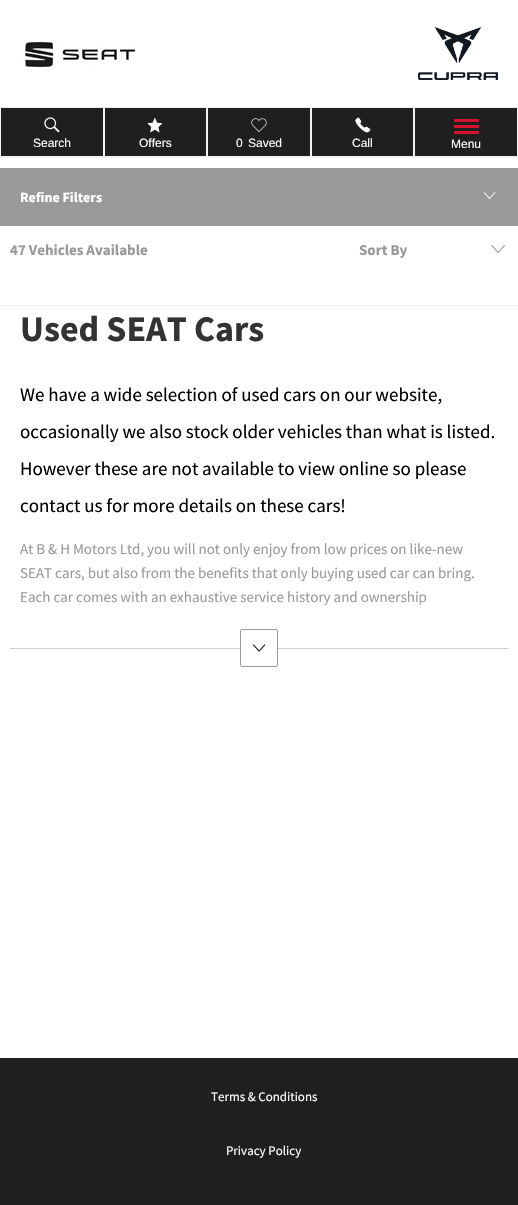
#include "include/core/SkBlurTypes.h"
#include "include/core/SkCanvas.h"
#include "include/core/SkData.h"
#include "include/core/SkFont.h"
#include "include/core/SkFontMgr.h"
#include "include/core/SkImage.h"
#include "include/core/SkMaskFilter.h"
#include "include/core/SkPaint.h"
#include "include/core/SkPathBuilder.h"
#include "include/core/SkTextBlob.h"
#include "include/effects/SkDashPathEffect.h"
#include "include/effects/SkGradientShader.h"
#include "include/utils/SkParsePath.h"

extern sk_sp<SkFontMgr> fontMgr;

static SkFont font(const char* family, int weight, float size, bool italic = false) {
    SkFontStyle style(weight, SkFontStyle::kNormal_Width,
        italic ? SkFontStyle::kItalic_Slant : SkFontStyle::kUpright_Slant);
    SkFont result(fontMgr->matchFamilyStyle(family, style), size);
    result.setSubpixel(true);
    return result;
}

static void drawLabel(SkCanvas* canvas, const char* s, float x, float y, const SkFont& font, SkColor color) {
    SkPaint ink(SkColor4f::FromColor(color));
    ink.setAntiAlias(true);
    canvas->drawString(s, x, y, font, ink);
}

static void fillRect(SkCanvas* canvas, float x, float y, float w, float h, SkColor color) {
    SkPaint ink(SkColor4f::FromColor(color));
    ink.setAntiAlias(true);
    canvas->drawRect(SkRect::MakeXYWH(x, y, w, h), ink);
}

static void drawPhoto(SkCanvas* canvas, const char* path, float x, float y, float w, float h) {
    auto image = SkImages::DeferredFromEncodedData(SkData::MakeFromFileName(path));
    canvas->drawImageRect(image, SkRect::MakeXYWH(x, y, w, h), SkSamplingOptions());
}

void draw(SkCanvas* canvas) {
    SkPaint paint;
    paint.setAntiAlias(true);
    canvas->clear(0xFFFFFFFF);
    drawPhoto(canvas, "assets/img1.png", 22, 41, 115, 31);
    drawPhoto(canvas, "assets/img2.png", 418, 27, 80, 53);
    fillRect(canvas, 1, 108, 516, 48, 0xFF1F1F1F);
    paint.setStroke(true);
    paint.setStrokeWidth(1);
    paint.setColor(0xFFF2F2F2);
    canvas->drawRect(SkRect::MakeXYWH(0.5f, 107.5f, 103, 49), paint);
    drawPhoto(canvas, "assets/img3.png", 44, 117, 16, 16);
    SkFont font1 = font("Liberation Sans", 400, 12);
    drawLabel(canvas, "Search", 33, 147, font1, 0xFFFFFFFF);
    canvas->drawRect(SkRect::MakeXYWH(104.5f, 107.5f, 102, 49), paint);
    drawPhoto(canvas, "assets/img4.png", 147, 117, 16, 16);
    drawLabel(canvas, "Offers", 139, 147, font1, 0xFFFFFFFF);
    canvas->drawRect(SkRect::MakeXYWH(207.5f, 107.5f, 103, 49), paint);
    drawPhoto(canvas, "assets/img5.png", 251, 118, 16, 14);
    drawLabel(canvas, "0", 236, 147, font1, 0xFFFFFFFF);
    drawLabel(canvas, "Saved", 248, 147, font1, 0xFFFFFFFF);
    canvas->drawRect(SkRect::MakeXYWH(311.5f, 107.5f, 102, 49), paint);
    drawPhoto(canvas, "assets/img6.png", 355, 117, 16, 16);
    drawLabel(canvas, "Call", 352, 147, font1, 0xFFFFFFFF);
    canvas->drawRect(SkRect::MakeXYWH(414.5f, 107.5f, 103, 49), paint);
    fillRect(canvas, 454, 131, 25, 3, 0xFFD7122B);
    fillRect(canvas, 454, 119, 25, 3, 0xFFD7122B);
    fillRect(canvas, 454, 125, 25, 3, 0xFFD7122B);
    drawLabel(canvas, "Menu", 451, 148, font1, 0xFFFFFFFF);
    fillRect(canvas, 0, 157, 518, 1, 0xFFF2F2F2);
    fillRect(canvas, 0, 168, 518, 58, 0xFF999999);
    SkFont font2 = font("Source Sans Pro", 700, 14);
    drawLabel(canvas, "Refine Filters", 20, 202, font2, 0xFFFFFFFF);
    drawPhoto(canvas, "assets/img7.png", 483, 192, 13, 7);
    SkFont font3 = font("Source Sans Pro", 700, 15);
    drawLabel(canvas, "47 Vehicles Available", 10, 255, font3, 0xFF999999);
    drawLabel(canvas, "Sort By", 359, 255, font3, 0xFF999999);
    drawPhoto(canvas, "assets/img8.png", 491, 245, 14, 8);
    fillRect(canvas, 0, 305, 518, 1, 0xFFF2F2F2);
    SkFont font4 = font("Source Sans Pro", 700, 36);
    drawLabel(canvas, "Used SEAT Cars", 20, 341, font4, 0xFF333333);
    SkFont font5 = font("Source Sans Pro", 400, 19);
    drawLabel(canvas, "We have a wide selection of used cars on our website,", 20, 401, font5, 0xFF000000);
    drawLabel(canvas, "occasionally we also stock older vehicles than what is listed.", 20, 438, font5, 0xFF000000);
    drawLabel(canvas, "However these are not available to view online so please", 20, 475, font5, 0xFF000000);
    drawLabel(canvas, "contact us for more details on these cars!", 20, 512, font5, 0xFF000000);
    SkFont font6 = font("Source Sans Pro", 400, 15);
    drawLabel(canvas, "At B & H Motors Ltd, you will not only enjoy from low prices on like-new", 20, 554, font6, 0xFF999999);
    drawLabel(canvas, "SEAT cars, but also from the benefits that only buying used car can bring.", 20, 578, font6, 0xFF999999);
    drawLabel(canvas, "Each car comes with an exhaustive service history and ownership", 20, 602, font6, 0xFF999999);
    paint.setStroke(false);
    {
        const SkColor colors[] = {0x00FFFFFF, 0xFFFFFFFF};
        const float stops[] = {0, 0.44f};
        const SkPoint ends[] = {{259, 599}, {259, 667}};
        paint.setShader(SkGradientShader::MakeLinear(ends, colors, stops, 2, SkTileMode::kClamp));
        paint.setAlpha(255);
    }
    canvas->drawRect(SkRect::MakeXYWH(21, 600, 405, 5), paint);
    fillRect(canvas, 10, 648, 498, 1, 0xFFCCCCCC);
    paint.setShader(nullptr);
    paint.setColor(0xFFFFFFFF);
    canvas->drawRoundRect(SkRect::MakeXYWH(240.5f, 629.5f, 37, 37), 1.5f, 1.5f, paint);
    paint.setStroke(true);
    paint.setColor(0xFF999999);
    canvas->drawRoundRect(SkRect::MakeXYWH(240.5f, 629.5f, 37, 37), 1.5f, 1.5f, paint);
    drawPhoto(canvas, "assets/img9.png", 253, 644, 13, 8);
    fillRect(canvas, 0, 1058, 518, 147, 0xFF1F1F1F);
    SkFont font7 = font("Source Sans Pro", 400, 13);
    drawLabel(canvas, "Terms & Conditions", 211, 1101, font7, 0xFFFFFFFF);
    drawLabel(canvas, "Privacy Policy", 226, 1155, font7, 0xFFFFFFFF);
}
